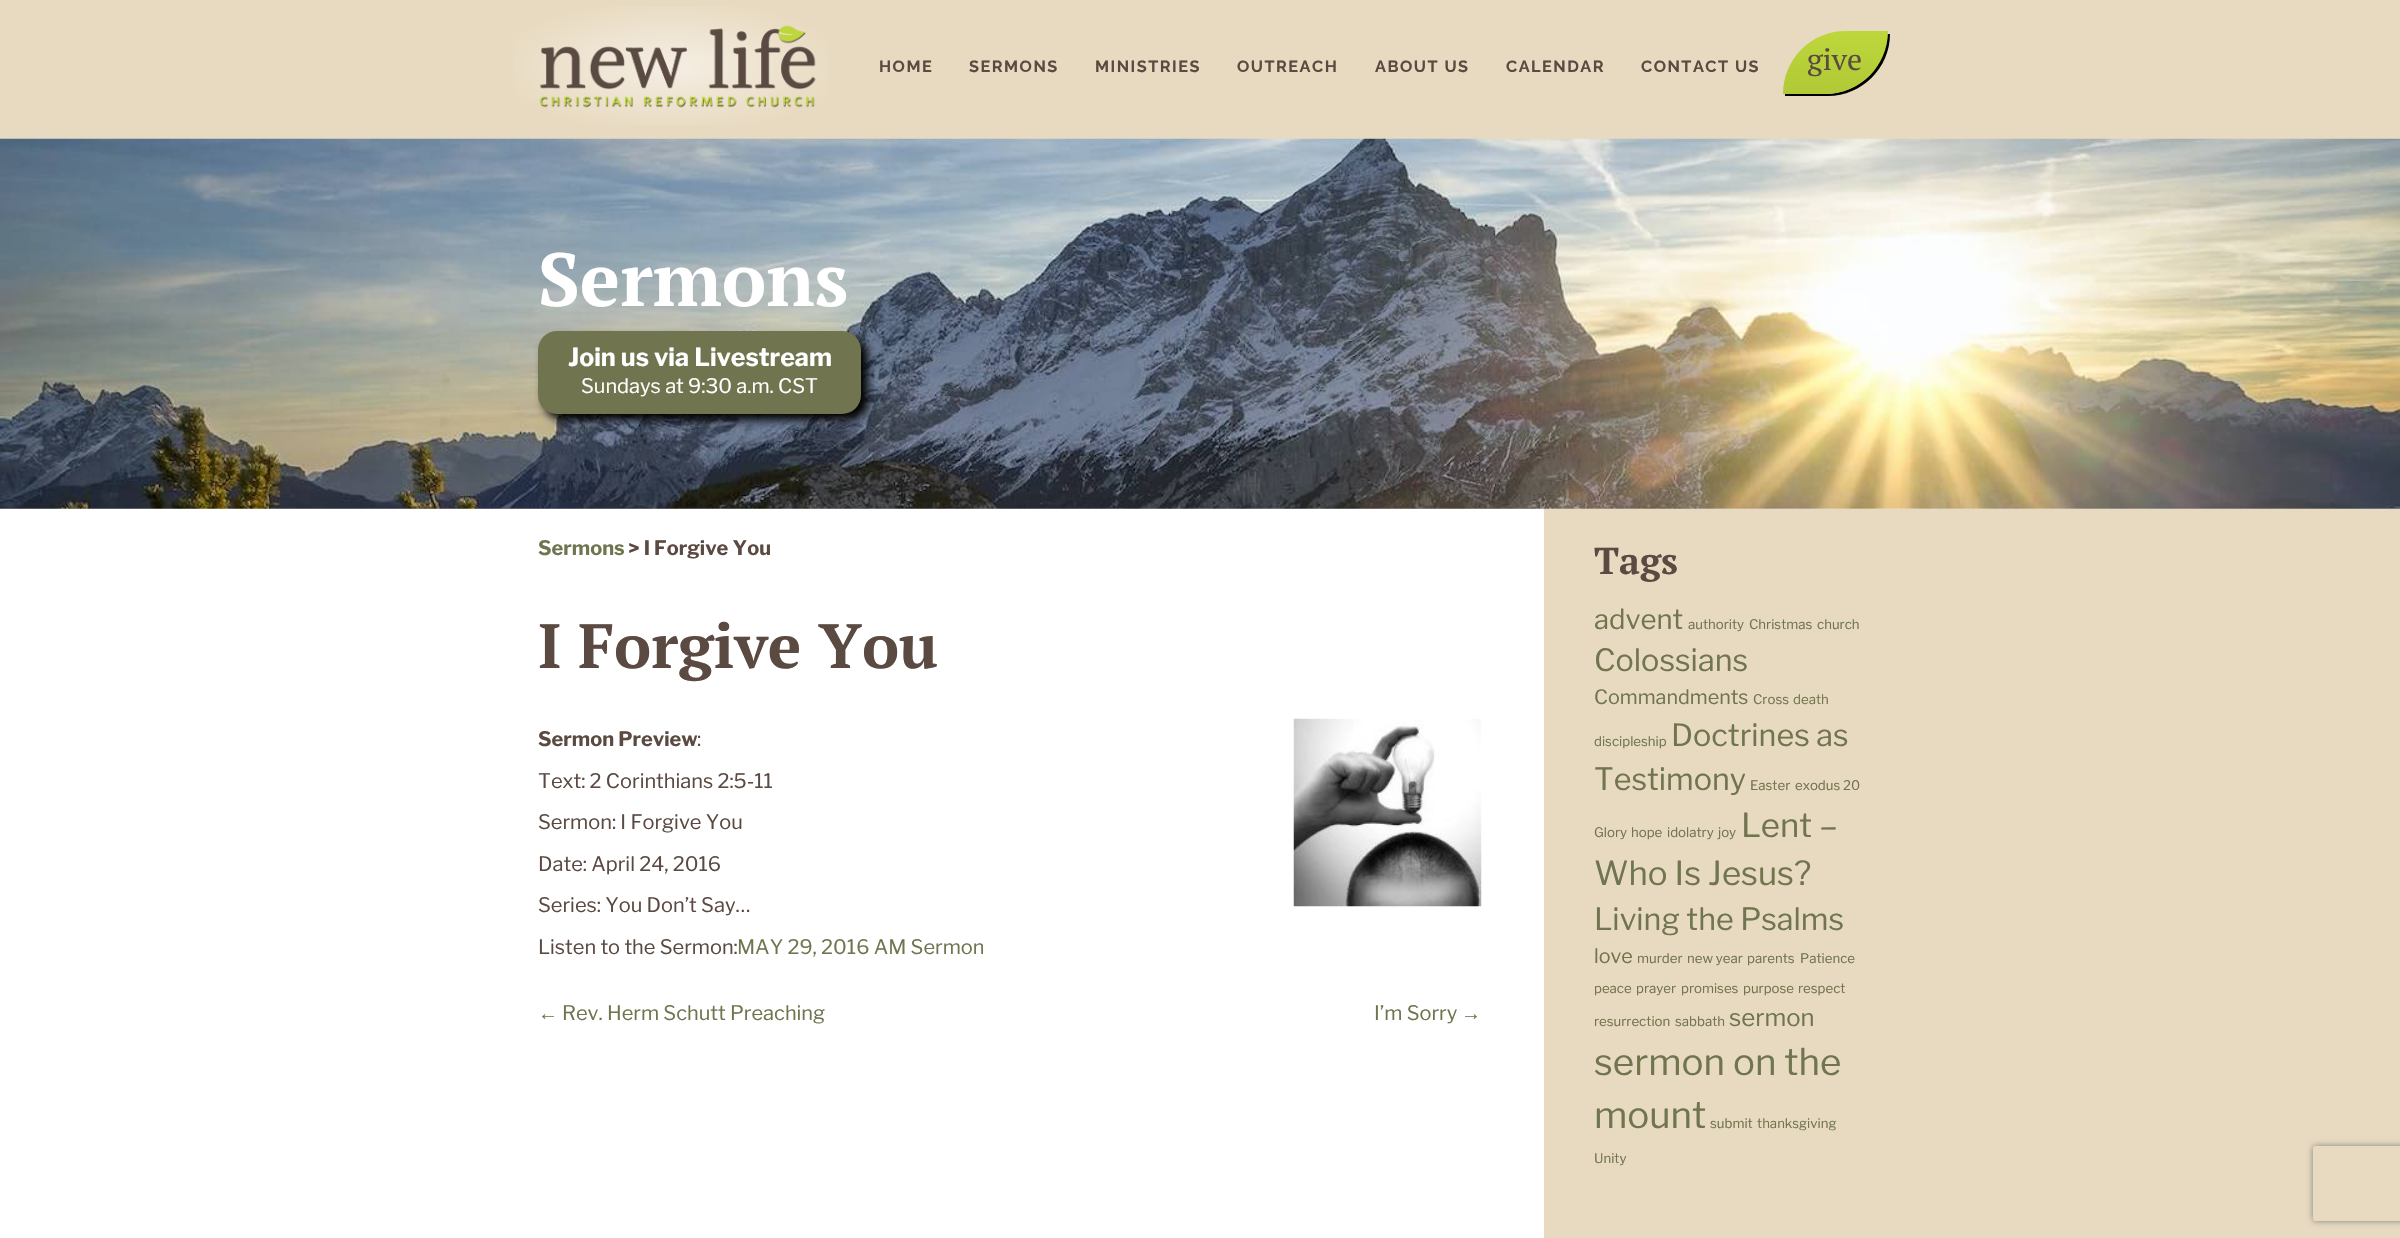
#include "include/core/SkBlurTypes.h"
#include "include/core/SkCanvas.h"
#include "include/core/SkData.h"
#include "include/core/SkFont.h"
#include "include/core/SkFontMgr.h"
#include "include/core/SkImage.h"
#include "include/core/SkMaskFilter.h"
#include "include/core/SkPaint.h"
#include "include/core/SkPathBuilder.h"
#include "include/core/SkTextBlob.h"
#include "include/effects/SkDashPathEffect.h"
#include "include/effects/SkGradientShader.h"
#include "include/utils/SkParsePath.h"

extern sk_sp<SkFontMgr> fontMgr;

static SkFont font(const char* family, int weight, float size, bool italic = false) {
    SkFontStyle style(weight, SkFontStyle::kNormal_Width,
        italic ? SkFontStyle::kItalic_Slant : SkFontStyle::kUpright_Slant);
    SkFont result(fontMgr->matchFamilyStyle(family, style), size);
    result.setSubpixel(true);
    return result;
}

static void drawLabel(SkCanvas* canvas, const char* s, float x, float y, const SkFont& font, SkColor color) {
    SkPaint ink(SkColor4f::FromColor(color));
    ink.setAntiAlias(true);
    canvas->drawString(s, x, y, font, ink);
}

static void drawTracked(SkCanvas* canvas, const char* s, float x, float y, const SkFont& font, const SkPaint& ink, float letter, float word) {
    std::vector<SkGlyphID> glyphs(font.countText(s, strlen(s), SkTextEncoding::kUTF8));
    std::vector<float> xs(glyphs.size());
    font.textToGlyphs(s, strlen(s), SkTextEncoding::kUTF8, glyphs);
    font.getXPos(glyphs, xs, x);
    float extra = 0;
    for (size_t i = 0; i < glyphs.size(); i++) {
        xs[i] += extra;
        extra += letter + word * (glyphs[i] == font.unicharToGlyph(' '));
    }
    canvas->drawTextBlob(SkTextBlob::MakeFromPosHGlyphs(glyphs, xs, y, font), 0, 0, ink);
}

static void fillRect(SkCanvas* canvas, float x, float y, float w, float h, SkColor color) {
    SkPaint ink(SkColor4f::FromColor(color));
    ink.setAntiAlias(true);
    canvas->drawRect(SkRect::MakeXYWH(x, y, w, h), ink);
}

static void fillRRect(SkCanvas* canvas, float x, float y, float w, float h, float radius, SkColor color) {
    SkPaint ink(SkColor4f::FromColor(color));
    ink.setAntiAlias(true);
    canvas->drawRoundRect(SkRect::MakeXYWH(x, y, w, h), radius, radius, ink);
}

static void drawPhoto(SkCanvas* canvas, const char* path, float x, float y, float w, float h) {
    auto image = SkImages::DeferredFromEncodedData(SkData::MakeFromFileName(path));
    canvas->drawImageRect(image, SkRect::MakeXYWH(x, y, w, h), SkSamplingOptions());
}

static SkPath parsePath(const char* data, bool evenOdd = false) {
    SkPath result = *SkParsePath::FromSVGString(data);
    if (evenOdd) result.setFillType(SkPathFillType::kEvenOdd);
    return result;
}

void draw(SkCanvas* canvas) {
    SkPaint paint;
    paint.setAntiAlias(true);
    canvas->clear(0xFFFFFFFF);
    fillRect(canvas, 0, 0, 2400, 139, 0xFFE8DAC0);
    {
        const SkColor colors[] = {0xFFF5EEE3, 0xFFE8DAC0};
        const float stops[] = {0, 0.8f};
        SkMatrix m = SkMatrix::Translate(671, 66).preScale(224, 85);
        paint.setShader(SkGradientShader::MakeRadial({0, 0}, 1, colors, stops, 2, SkTileMode::kClamp, 0, &m));
        paint.setAlpha(255);
    }
    canvas->drawRect(SkRect::MakeXYWH(513, 6, 316, 120), paint);
    drawPhoto(canvas, "assets/img1.png", 539, 25, 277, 83);
    SkFont font1 = font("Raleway", 100, 16.25f);
    paint.setShader(nullptr);
    paint.setColor(0xFF5B4A42);
    drawTracked(canvas, "HOME", 879, 72, font1, paint, 1.5f, 0);
    drawTracked(canvas, "SERMONS", 969, 72, font1, paint, 1.5f, 0);
    drawTracked(canvas, "MINISTRIES", 1095, 72, font1, paint, 1.5f, 0);
    drawTracked(canvas, "OUTREACH", 1237, 72, font1, paint, 1.5f, 0);
    drawTracked(canvas, "ABOUT US", 1375, 72, font1, paint, 1.5f, 0);
    drawTracked(canvas, "CALENDAR", 1506, 72, font1, paint, 1.5f, 0);
    drawTracked(canvas, "CONTACT US", 1641, 72, font1, paint, 1.5f, 0);
    paint.setColor(0xFF000000);
    canvas->drawPath(parsePath("M1785 94V96H1828C1862 96 1890 68 1890 34H1887C1886 67 1859 94 1825 94Z"), paint);
    {
        const SkColor colors[] = {0xFFBDD73B, 0xFFB0C936};
        const float stops[] = {0, 1};
        const SkPoint ends[] = {{1835, 31}, {1835, 94}};
        paint.setShader(SkGradientShader::MakeLinear(ends, colors, stops, 2, SkTileMode::kClamp));
        paint.setAlpha(255);
    }
    canvas->drawPath(parsePath("M1846 31H1888C1888 66 1860 94 1825 94H1783C1783 59 1811 31 1846 31Z"), paint);
    SkFont font2 = font("PT Serif", 400, 30);
    drawLabel(canvas, "give", 1807, 70, font2, 0xFF5B4A42);
    drawPhoto(canvas, "assets/img2.png", 0, 138, 2400, 371);
    SkFont font3 = font("PT Serif", 700, 75);
    drawLabel(canvas, "Sermons", 538, 306, font3, 0xFFFFFFFF);
    paint.setShader(nullptr);
    paint.setColor(0xFF000000);
    paint.setMaskFilter(SkMaskFilter::MakeBlur(kNormal_SkBlurStyle, 5));
    canvas->drawRoundRect(SkRect::MakeXYWH(544, 338, 324, 82), 19, 19, paint);
    paint.setMaskFilter(nullptr);
    fillRRect(canvas, 538, 331, 323, 83, 19, 0xFF70754F);
    SkFont font4 = font("Libre Franklin", 700, 25);
    drawLabel(canvas, "Join us via Livestream", 568, 366, font4, 0xFFFFFFFF);
    SkFont font5 = font("Libre Franklin", 400, 20);
    drawLabel(canvas, "Sundays at 9:30 a.m. CST", 581, 393, font5, 0xFFFFFFFF);
    fillRect(canvas, 1544, 509, 856, 729, 0xFFE8DAC0);
    SkFont font6 = font("Libre Franklin", 700, 20);
    drawLabel(canvas, "Sermons", 538, 555, font6, 0xFF70754F);
    drawLabel(canvas, "> I Forgive You", 628, 555, font6, 0xFF5B4A42);
    SkFont font7 = font("PT Serif", 700, 62.5f);
    drawLabel(canvas, "I Forgive You", 538, 668, font7, 0xFF5B4A42);
    drawLabel(canvas, "Sermon Preview", 538, 746, font6, 0xFF5B4A42);
    drawLabel(canvas, ":", 697, 746, font5, 0xFF5B4A42);
    drawPhoto(canvas, "assets/img3.png", 1293, 718, 189, 189);
    drawLabel(canvas, "Text: 2 Corinthians 2:5-11", 538, 788, font5, 0xFF5B4A42);
    drawLabel(canvas, "Sermon: I Forgive You", 538, 829, font5, 0xFF5B4A42);
    drawLabel(canvas, "Date: April 24, 2016", 538, 871, font5, 0xFF5B4A42);
    drawLabel(canvas, "Series: You Don’t Say…", 538, 912, font5, 0xFF5B4A42);
    drawLabel(canvas, "Listen to the Sermon:", 538, 954, font5, 0xFF5B4A42);
    drawLabel(canvas, "MAY 29, 2016 AM Sermon", 737, 954, font5, 0xFF70754F);
    SkFont font8 = font("Liberation Sans", 400, 20);
    drawLabel(canvas, "←", 538, 1020, font8, 0xFF70754F);
    drawLabel(canvas, "Rev. Herm Schutt Preaching", 562, 1020, font5, 0xFF70754F);
    drawLabel(canvas, "I’m Sorry", 1374, 1020, font5, 0xFF70754F);
    drawLabel(canvas, "→", 1461, 1020, font8, 0xFF70754F);
    SkFont font9 = font("PT Serif", 700, 37.5f);
    drawLabel(canvas, "Tags", 1594, 574, font9, 0xFF5B4A42);
    SkFont font10 = font("Libre Franklin", 400, 27.5f);
    drawLabel(canvas, "advent", 1594, 629, font10, 0xFF70754F);
    SkFont font11 = font("Libre Franklin", 400, 13.25f);
    drawLabel(canvas, "authority", 1688, 629, font11, 0xFF70754F);
    drawLabel(canvas, "Christmas", 1749, 629, font11, 0xFF70754F);
    drawLabel(canvas, "church", 1817, 629, font11, 0xFF70754F);
    SkFont font12 = font("Libre Franklin", 400, 30.5f);
    drawLabel(canvas, "Colossians", 1594, 671, font12, 0xFF70754F);
    SkFont font13 = font("Libre Franklin", 400, 19.75f);
    drawLabel(canvas, "Commandments", 1594, 704, font13, 0xFF70754F);
    drawLabel(canvas, "Cross", 1753, 704, font11, 0xFF70754F);
    drawLabel(canvas, "death", 1793, 704, font11, 0xFF70754F);
    drawLabel(canvas, "discipleship", 1594, 746, font11, 0xFF70754F);
    drawLabel(canvas, "Doctrines as", 1671, 746, font12, 0xFF70754F);
    drawLabel(canvas, "Testimony", 1594, 790, font12, 0xFF70754F);
    drawLabel(canvas, "Easter", 1750, 790, font11, 0xFF70754F);
    drawLabel(canvas, "exodus 20", 1795, 790, font11, 0xFF70754F);
    drawLabel(canvas, "Glory", 1594, 837, font11, 0xFF70754F);
    drawLabel(canvas, "hope", 1631, 837, font11, 0xFF70754F);
    drawLabel(canvas, "idolatry", 1667, 837, font11, 0xFF70754F);
    drawLabel(canvas, "joy", 1718, 837, font11, 0xFF70754F);
    SkFont font14 = font("Libre Franklin", 400, 33);
    drawLabel(canvas, "Lent –", 1741, 837, font14, 0xFF70754F);
    drawLabel(canvas, "Who Is Jesus?", 1594, 885, font14, 0xFF70754F);
    drawLabel(canvas, "Living the Psalms", 1594, 930, font12, 0xFF70754F);
    drawLabel(canvas, "love", 1594, 963, font13, 0xFF70754F);
    drawLabel(canvas, "murder", 1637, 963, font11, 0xFF70754F);
    drawLabel(canvas, "new year", 1687, 963, font11, 0xFF70754F);
    drawLabel(canvas, "parents", 1747, 963, font11, 0xFF70754F);
    drawLabel(canvas, "Patience", 1800, 963, font11, 0xFF70754F);
    drawLabel(canvas, "peace", 1594, 993, font11, 0xFF70754F);
    drawLabel(canvas, "prayer", 1636, 993, font11, 0xFF70754F);
    drawLabel(canvas, "promises", 1681, 993, font11, 0xFF70754F);
    drawLabel(canvas, "purpose", 1743, 993, font11, 0xFF70754F);
    drawLabel(canvas, "respect", 1798, 993, font11, 0xFF70754F);
    drawLabel(canvas, "resurrection", 1594, 1026, font11, 0xFF70754F);
    drawLabel(canvas, "sabbath", 1675, 1026, font11, 0xFF70754F);
    SkFont font15 = font("Libre Franklin", 400, 24);
    drawLabel(canvas, "sermon", 1729, 1026, font15, 0xFF70754F);
    SkFont font16 = font("Libre Franklin", 400, 36.75f);
    drawLabel(canvas, "sermon on the", 1594, 1075, font16, 0xFF70754F);
    drawLabel(canvas, "mount", 1594, 1128, font16, 0xFF70754F);
    drawLabel(canvas, "submit", 1710, 1128, font11, 0xFF70754F);
    drawLabel(canvas, "thanksgiving", 1757, 1128, font11, 0xFF70754F);
    drawLabel(canvas, "Unity", 1594, 1163, font11, 0xFF70754F);
    canvas->save();
    canvas->clipPath(parsePath("M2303 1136H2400V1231H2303ZM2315.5 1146H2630.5C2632 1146 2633 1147 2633 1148.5V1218.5C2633 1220 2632 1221 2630.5 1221H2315.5C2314 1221 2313 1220 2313 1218.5V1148.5C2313 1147 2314 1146 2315.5 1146Z", true), true);
    paint.setColor(0xFF808080);
    paint.setMaskFilter(SkMaskFilter::MakeBlur(kNormal_SkBlurStyle, 3));
    canvas->drawRoundRect(SkRect::MakeXYWH(2313, 1146, 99, 75), 2.5f, 2.5f, paint);
    paint.setMaskFilter(nullptr);
    canvas->restore();
}
